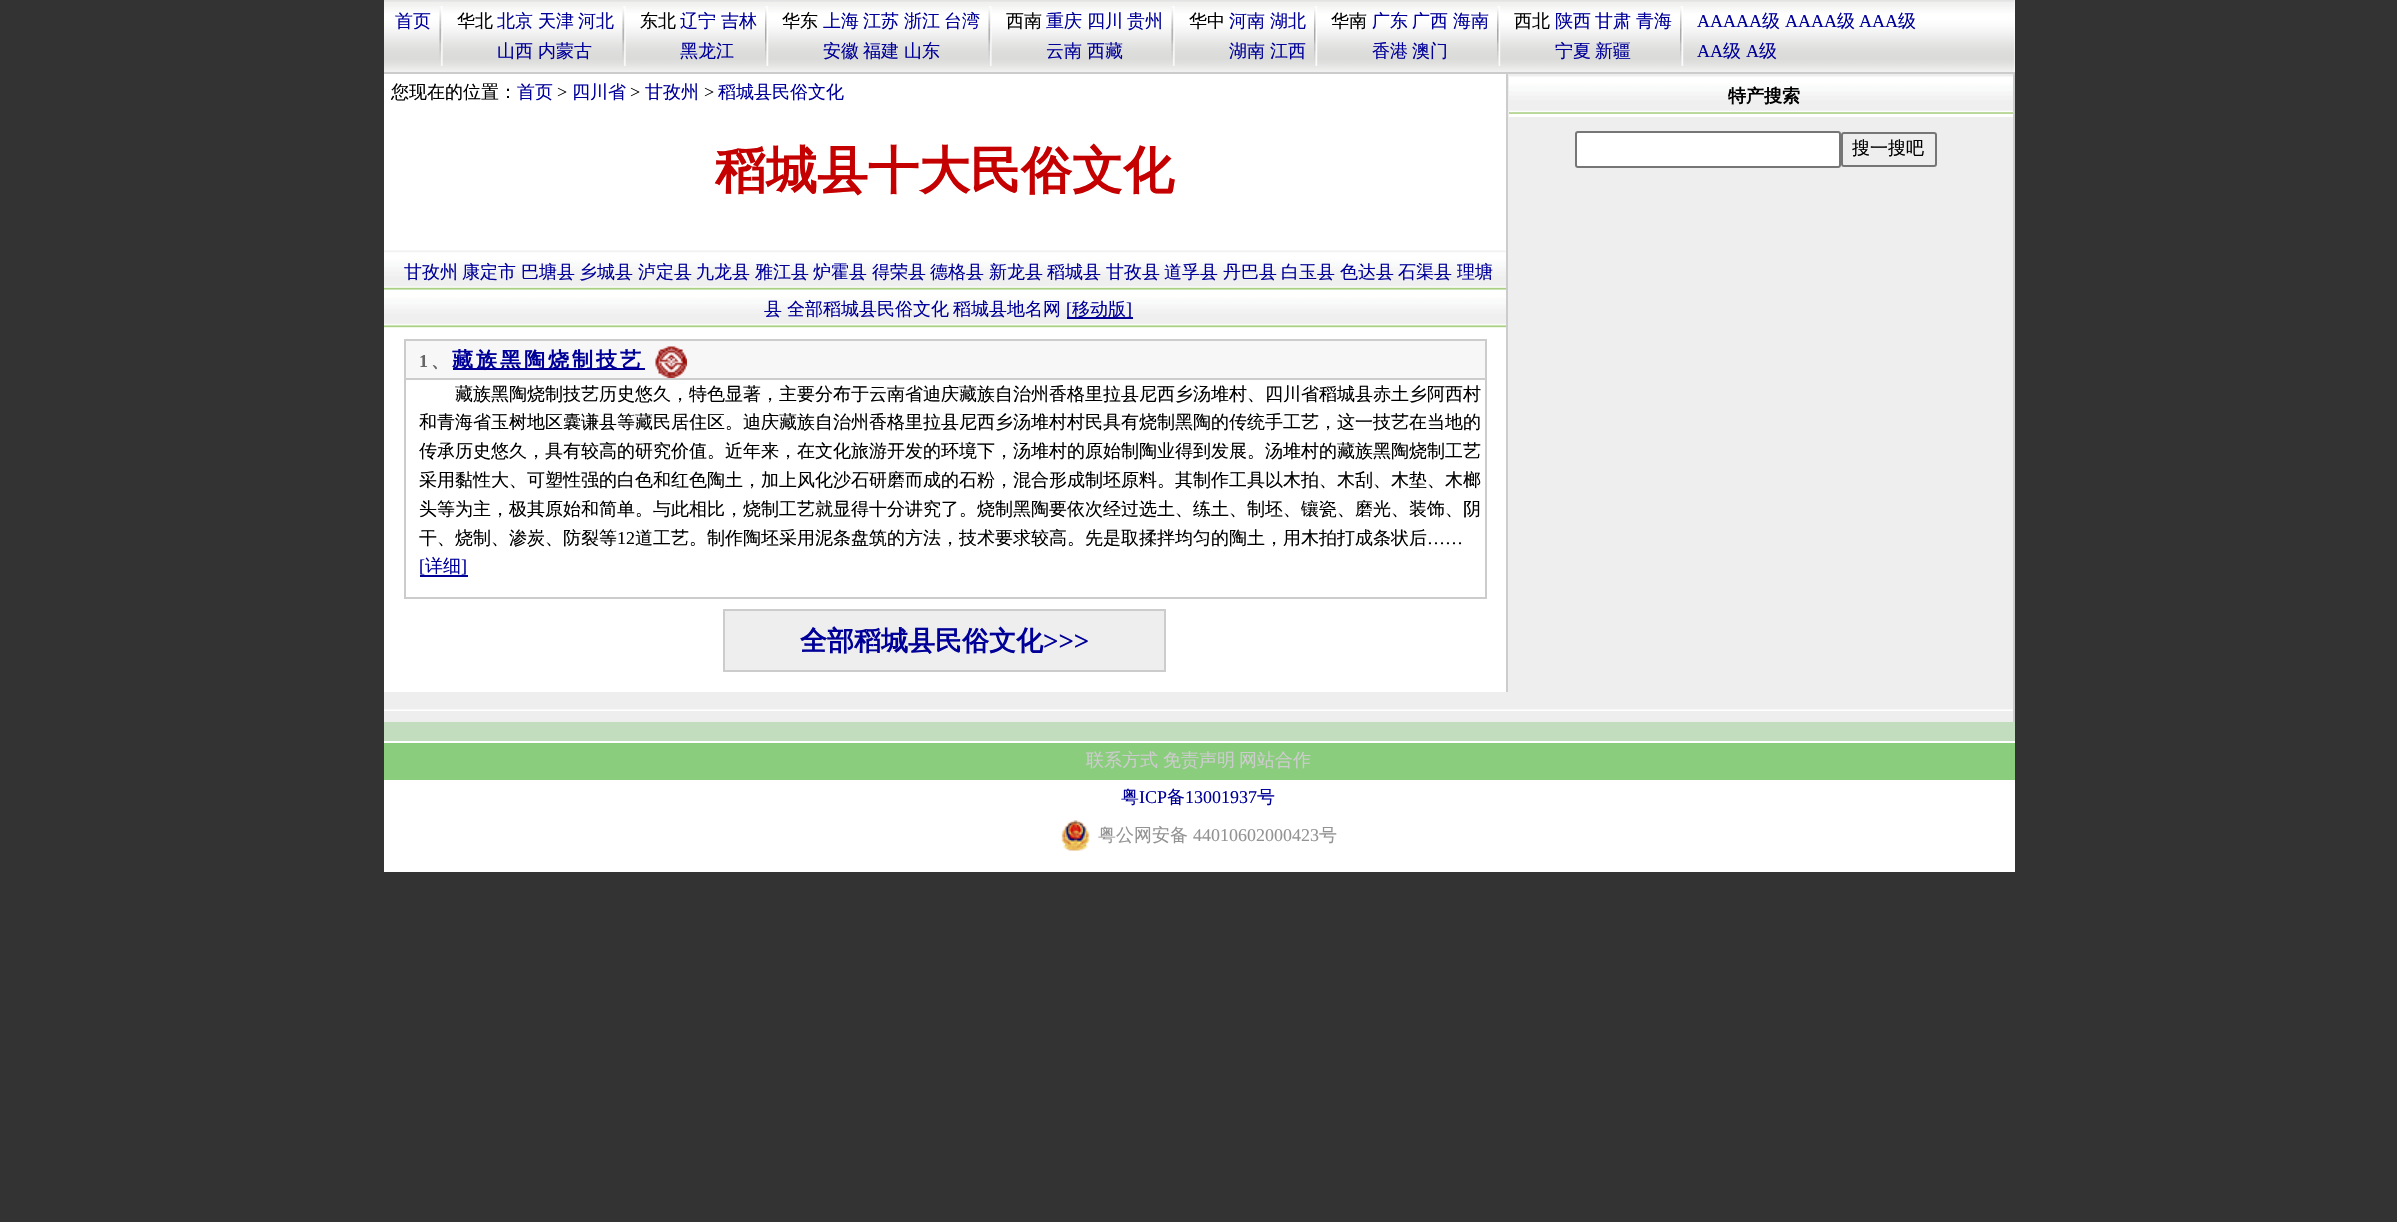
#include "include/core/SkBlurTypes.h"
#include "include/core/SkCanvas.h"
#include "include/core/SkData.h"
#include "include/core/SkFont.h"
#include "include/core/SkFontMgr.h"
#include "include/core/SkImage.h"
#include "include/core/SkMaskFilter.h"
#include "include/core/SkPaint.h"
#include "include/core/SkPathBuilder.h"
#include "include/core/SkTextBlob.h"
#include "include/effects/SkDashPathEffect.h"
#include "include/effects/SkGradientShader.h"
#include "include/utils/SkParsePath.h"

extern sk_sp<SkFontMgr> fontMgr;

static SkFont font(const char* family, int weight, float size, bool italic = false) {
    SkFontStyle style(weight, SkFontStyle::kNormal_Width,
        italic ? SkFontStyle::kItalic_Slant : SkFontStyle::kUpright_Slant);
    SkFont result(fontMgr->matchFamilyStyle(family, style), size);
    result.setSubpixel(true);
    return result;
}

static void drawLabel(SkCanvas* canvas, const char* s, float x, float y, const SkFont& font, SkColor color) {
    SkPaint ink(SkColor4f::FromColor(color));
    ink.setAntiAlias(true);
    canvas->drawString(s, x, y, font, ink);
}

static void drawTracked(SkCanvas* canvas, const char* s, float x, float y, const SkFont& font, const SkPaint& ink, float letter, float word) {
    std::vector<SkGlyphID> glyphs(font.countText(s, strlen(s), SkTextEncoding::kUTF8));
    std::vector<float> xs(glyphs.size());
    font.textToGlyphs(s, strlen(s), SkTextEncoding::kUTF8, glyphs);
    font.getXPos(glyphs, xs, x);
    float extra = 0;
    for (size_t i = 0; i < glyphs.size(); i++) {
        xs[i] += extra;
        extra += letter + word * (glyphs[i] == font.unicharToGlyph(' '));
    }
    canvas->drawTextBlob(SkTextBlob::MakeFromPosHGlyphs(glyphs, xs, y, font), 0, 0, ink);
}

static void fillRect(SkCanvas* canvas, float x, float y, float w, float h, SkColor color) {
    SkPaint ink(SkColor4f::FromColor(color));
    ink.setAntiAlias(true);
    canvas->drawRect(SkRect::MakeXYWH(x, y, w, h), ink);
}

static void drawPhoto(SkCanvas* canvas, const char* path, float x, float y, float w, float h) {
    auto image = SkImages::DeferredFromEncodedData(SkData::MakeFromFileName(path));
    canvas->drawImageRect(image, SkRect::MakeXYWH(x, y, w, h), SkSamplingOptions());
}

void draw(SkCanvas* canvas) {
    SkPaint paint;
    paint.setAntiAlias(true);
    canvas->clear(0xFF333333);
    fillRect(canvas, 384, 0, 1631, 72, 0xFFFFFFFF);
    drawPhoto(canvas, "assets/img1.png", 384, 0, 1631, 72);
    fillRect(canvas, 384, 72, 1631, 2, 0xFFCCCCCC);
    SkFont font1 = font("WenQuanYi Zen Hei", 500, 18);
    drawLabel(canvas, "首页", 395, 27, font1, 0xFF000099);
    drawPhoto(canvas, "assets/img2.png", 439, 6, 4, 60);
    drawLabel(canvas, "华北", 457, 27, font1, 0xFF000000);
    drawLabel(canvas, "北京", 497, 27, font1, 0xFF000099);
    drawLabel(canvas, "天津", 538, 27, font1, 0xFF000099);
    drawLabel(canvas, "河北", 578, 27, font1, 0xFF000099);
    drawLabel(canvas, "山西", 497, 57, font1, 0xFF000099);
    drawLabel(canvas, "内蒙古", 538, 57, font1, 0xFF000099);
    drawPhoto(canvas, "assets/img2.png", 622, 6, 4, 60);
    drawLabel(canvas, "东北", 640, 27, font1, 0xFF000000);
    drawLabel(canvas, "辽宁", 680, 27, font1, 0xFF000099);
    drawLabel(canvas, "吉林", 721, 27, font1, 0xFF000099);
    drawLabel(canvas, "黑龙江", 680, 57, font1, 0xFF000099);
    drawPhoto(canvas, "assets/img3.png", 765, 6, 4, 60);
    drawLabel(canvas, "华东", 782, 27, font1, 0xFF000000);
    drawLabel(canvas, "上海", 823, 27, font1, 0xFF000099);
    drawLabel(canvas, "江苏", 863, 27, font1, 0xFF000099);
    drawLabel(canvas, "浙江", 904, 27, font1, 0xFF000099);
    drawLabel(canvas, "台湾", 944, 27, font1, 0xFF000099);
    drawLabel(canvas, "安徽", 823, 57, font1, 0xFF000099);
    drawLabel(canvas, "福建", 863, 57, font1, 0xFF000099);
    drawLabel(canvas, "山东", 904, 57, font1, 0xFF000099);
    drawPhoto(canvas, "assets/img4.png", 988, 6, 4, 60);
    drawLabel(canvas, "西南", 1006, 27, font1, 0xFF000000);
    drawLabel(canvas, "重庆", 1046, 27, font1, 0xFF000099);
    drawLabel(canvas, "四川", 1087, 27, font1, 0xFF000099);
    drawLabel(canvas, "贵州", 1127, 27, font1, 0xFF000099);
    drawLabel(canvas, "云南", 1046, 57, font1, 0xFF000099);
    drawLabel(canvas, "西藏", 1087, 57, font1, 0xFF000099);
    drawPhoto(canvas, "assets/img2.png", 1171, 6, 4, 60);
    drawLabel(canvas, "华中", 1189, 27, font1, 0xFF000000);
    drawLabel(canvas, "河南", 1229, 27, font1, 0xFF000099);
    drawLabel(canvas, "湖北", 1270, 27, font1, 0xFF000099);
    drawLabel(canvas, "湖南", 1229, 57, font1, 0xFF000099);
    drawLabel(canvas, "江西", 1270, 57, font1, 0xFF000099);
    drawPhoto(canvas, "assets/img5.png", 1314, 6, 4, 60);
    drawLabel(canvas, "华南", 1331, 27, font1, 0xFF000000);
    drawLabel(canvas, "广东", 1372, 27, font1, 0xFF000099);
    drawLabel(canvas, "广西", 1412, 27, font1, 0xFF000099);
    drawLabel(canvas, "海南", 1453, 27, font1, 0xFF000099);
    drawLabel(canvas, "香港", 1372, 57, font1, 0xFF000099);
    drawLabel(canvas, "澳门", 1412, 57, font1, 0xFF000099);
    drawPhoto(canvas, "assets/img6.png", 1497, 6, 4, 60);
    drawLabel(canvas, "西北", 1514, 27, font1, 0xFF000000);
    drawLabel(canvas, "陕西", 1555, 27, font1, 0xFF000099);
    drawLabel(canvas, "甘肃", 1595, 27, font1, 0xFF000099);
    drawLabel(canvas, "青海", 1636, 27, font1, 0xFF000099);
    drawLabel(canvas, "宁夏", 1555, 57, font1, 0xFF000099);
    drawLabel(canvas, "新疆", 1595, 57, font1, 0xFF000099);
    drawPhoto(canvas, "assets/img3.png", 1680, 6, 4, 60);
    SkFont font2 = font("Liberation Serif", 400, 18);
    drawLabel(canvas, "AAAAA", 1697, 27, font2, 0xFF000099);
    drawLabel(canvas, "级", 1762, 27, font1, 0xFF000099);
    drawLabel(canvas, "AAAA", 1785, 27, font2, 0xFF000099);
    drawLabel(canvas, "级", 1837, 27, font1, 0xFF000099);
    drawLabel(canvas, "AAA", 1859, 27, font2, 0xFF000099);
    drawLabel(canvas, "级", 1898, 27, font1, 0xFF000099);
    drawLabel(canvas, "AA", 1697, 57, font2, 0xFF000099);
    drawLabel(canvas, "级", 1723, 57, font1, 0xFF000099);
    drawLabel(canvas, "A", 1746, 57, font2, 0xFF000099);
    drawLabel(canvas, "级", 1759, 57, font1, 0xFF000099);
    fillRect(canvas, 384, 74, 1629, 648, 0xFFEEEEEE);
    fillRect(canvas, 2013, 74, 2, 648, 0xFFCCCCCC);
    drawPhoto(canvas, "assets/img7.png", 384, 709, 1629, 2);
    fillRect(canvas, 384, 74, 1122, 618, 0xFFFFFFFF);
    fillRect(canvas, 1506, 74, 2, 618, 0xFFCCCCCC);
    drawLabel(canvas, "您现在的位置：", 391, 98, font1, 0xFF000000);
    drawLabel(canvas, "首页", 517, 98, font1, 0xFF000099);
    drawLabel(canvas, ">", 557, 98, font2, 0xFF000000);
    drawLabel(canvas, "四川省", 572, 98, font1, 0xFF000099);
    drawLabel(canvas, ">", 630, 98, font2, 0xFF000000);
    drawLabel(canvas, "甘孜州", 645, 98, font1, 0xFF000099);
    drawLabel(canvas, ">", 704, 98, font2, 0xFF000000);
    drawLabel(canvas, "稻城县民俗文化", 718, 98, font1, 0xFF000099);
    SkFont font3 = font("WenQuanYi Zen Hei", 700, 51);
    drawLabel(canvas, "稻城县十大民俗文化", 715, 188, font3, 0xFFC50000);
    drawPhoto(canvas, "assets/img8.png", 384, 250, 1122, 78);
    drawLabel(canvas, "甘孜州", 404, 278, font1, 0xFF000099);
    drawLabel(canvas, "康定市", 462, 278, font1, 0xFF000099);
    drawLabel(canvas, "巴塘县", 521, 278, font1, 0xFF000099);
    drawLabel(canvas, "乡城县", 579, 278, font1, 0xFF000099);
    drawLabel(canvas, "泸定县", 638, 278, font1, 0xFF000099);
    drawLabel(canvas, "九龙县", 696, 278, font1, 0xFF000099);
    drawLabel(canvas, "雅江县", 755, 278, font1, 0xFF000099);
    drawLabel(canvas, "炉霍县", 813, 278, font1, 0xFF000099);
    drawLabel(canvas, "得荣县", 872, 278, font1, 0xFF000099);
    drawLabel(canvas, "德格县", 930, 278, font1, 0xFF000099);
    drawLabel(canvas, "新龙县", 989, 278, font1, 0xFF000099);
    drawLabel(canvas, "稻城县", 1047, 278, font1, 0xFF000099);
    drawLabel(canvas, "甘孜县", 1106, 278, font1, 0xFF000099);
    drawLabel(canvas, "道孚县", 1164, 278, font1, 0xFF000099);
    drawLabel(canvas, "丹巴县", 1223, 278, font1, 0xFF000099);
    drawLabel(canvas, "白玉县", 1281, 278, font1, 0xFF000099);
    drawLabel(canvas, "色达县", 1340, 278, font1, 0xFF000099);
    drawLabel(canvas, "石渠县", 1398, 278, font1, 0xFF000099);
    drawLabel(canvas, "理塘", 1457, 278, font1, 0xFF000099);
    drawLabel(canvas, "县", 764, 315, font1, 0xFF000099);
    drawLabel(canvas, "全部稻城县民俗文化", 787, 315, font1, 0xFF000099);
    drawLabel(canvas, "稻城县地名网", 953, 315, font1, 0xFF000099);
    fillRect(canvas, 1067, 317, 66, 2, 0xFF000099);
    drawLabel(canvas, "[", 1066, 315, font2, 0xFF000099);
    drawLabel(canvas, "移动版", 1072, 315, font1, 0xFF000099);
    drawLabel(canvas, "]", 1126, 315, font2, 0xFF000099);
    paint.setColor(0xFFF7F7F7);
    canvas->drawRect(SkRect::MakeXYWH(405, 340, 1081, 39), paint);
    paint.setStroke(true);
    paint.setStrokeWidth(2);
    paint.setColor(0xFFCCCCCC);
    canvas->drawRect(SkRect::MakeXYWH(405, 340, 1081, 39), paint);
    SkFont font4 = font("Liberation Serif", 700, 18);
    paint.setStroke(false);
    paint.setColor(0xFF666666);
    drawTracked(canvas, "1", 419, 367, font4, paint, 3, 0);
    fillRect(canvas, 453, 368, 192, 2, 0xFF000099);
    SkFont font5 = font("WenQuanYi Zen Hei", 700, 21);
    paint.setColor(0xFF000099);
    drawTracked(canvas, "藏族黑陶烧制技艺", 452, 367, font5, paint, 3, 0);
    drawPhoto(canvas, "assets/img9.png", 655, 346, 32, 32);
    SkFont font6 = font("WenQuanYi Zen Hei", 700, 18);
    paint.setColor(0xFF666666);
    drawTracked(canvas, "、", 431, 367, font6, paint, 3, 0);
    fillRect(canvas, 1485, 380, 2, 219, 0xFFCCCCCC);
    fillRect(canvas, 404, 597, 1083, 2, 0xFFCCCCCC);
    fillRect(canvas, 404, 380, 2, 219, 0xFFCCCCCC);
    drawLabel(canvas, "藏族黑陶烧制技艺历史悠久，特色显著，主要分布于云南省迪庆藏族自治州香格里拉县尼西乡汤堆村、四川省稻城县赤土乡阿西村", 455, 400, font1, 0xFF000000);
    drawLabel(canvas, "和青海省玉树地区囊谦县等藏民居住区。迪庆藏族自治州香格里拉县尼西乡汤堆村村民具有烧制黑陶的传统手工艺，这一技艺在当地的", 419, 428, font1, 0xFF000000);
    drawLabel(canvas, "传承历史悠久，具有较高的研究价值。近年来，在文化旅游开发的环境下，汤堆村的原始制陶业得到发展。汤堆村的藏族黑陶烧制工艺", 419, 457, font1, 0xFF000000);
    drawLabel(canvas, "采用黏性大、可塑性强的白色和红色陶土，加上风化沙石研磨而成的石粉，混合形成制坯原料。其制作工具以木拍、木刮、木垫、木榔", 419, 486, font1, 0xFF000000);
    drawLabel(canvas, "头等为主，极其原始和简单。与此相比，烧制工艺就显得十分讲究了。烧制黑陶要依次经过选土、练土、制坯、镶瓷、磨光、装饰、阴", 419, 515, font1, 0xFF000000);
    drawLabel(canvas, "干、烧制、渗炭、防裂等", 419, 544, font1, 0xFF000000);
    drawLabel(canvas, "12", 617, 544, font2, 0xFF000000);
    drawLabel(canvas, "道工艺。制作陶坯采用泥条盘筑的方法，技术要求较高。先是取揉拌均匀的陶土，用木拍打成条状后", 635, 544, font1, 0xFF000000);
    drawLabel(canvas, "……", 1427, 544, font2, 0xFF000000);
    drawLabel(canvas, "[", 419, 572, font2, 0xFF000099);
    fillRect(canvas, 420, 575, 48, 2, 0xFF000099);
    drawLabel(canvas, "详细", 425, 572, font1, 0xFF000099);
    drawLabel(canvas, "]", 461, 572, font2, 0xFF000099);
    paint.setColor(0xFFEEEEEE);
    canvas->drawRect(SkRect::MakeXYWH(724, 610, 441, 61), paint);
    paint.setStroke(true);
    paint.setColor(0xFFCCCCCC);
    canvas->drawRect(SkRect::MakeXYWH(724, 610, 441, 61), paint);
    SkFont font7 = font("WenQuanYi Zen Hei", 700, 27);
    drawLabel(canvas, "全部稻城县民俗文化", 800, 650, font7, 0xFF000099);
    SkFont font8 = font("Liberation Serif", 700, 27);
    drawLabel(canvas, ">>>", 1043, 650, font8, 0xFF000099);
    drawPhoto(canvas, "assets/img10.png", 1509, 76, 504, 41);
    drawLabel(canvas, "特产搜索", 1728, 102, font6, 0xFF000000);
    paint.setStroke(false);
    paint.setColor(0xFFFFFFFF);
    canvas->drawRoundRect(SkRect::MakeXYWH(1576, 132, 264, 35), 2, 2, paint);
    paint.setStroke(true);
    paint.setColor(0xFF767676);
    canvas->drawRoundRect(SkRect::MakeXYWH(1576, 132, 264, 35), 2, 2, paint);
    canvas->drawRoundRect(SkRect::MakeXYWH(1842, 133, 94, 33), 2, 2, paint);
    drawLabel(canvas, "搜一搜吧", 1852, 154, font1, 0xFF000000);
    fillRect(canvas, 384, 722, 1631, 19, 0xFFC2DDBD);
    fillRect(canvas, 384, 743, 1631, 37, 0xFF89CD7D);
    fillRect(canvas, 384, 741, 1631, 2, 0xFFFFFFFF);
    drawLabel(canvas, "联系方式", 1086, 766, font1, 0xFFCCCCCC);
    drawLabel(canvas, "免责声明", 1163, 766, font1, 0xFFCCCCCC);
    drawLabel(canvas, "网站合作", 1239, 766, font1, 0xFFCCCCCC);
    fillRect(canvas, 384, 780, 1631, 92, 0xFFFFFFFF);
    drawLabel(canvas, "粤", 1121, 803, font1, 0xFF000099);
    drawLabel(canvas, "ICP", 1139, 803, font2, 0xFF000099);
    drawLabel(canvas, "备", 1167, 803, font1, 0xFF000099);
    drawLabel(canvas, "13001937", 1185, 803, font2, 0xFF000099);
    drawLabel(canvas, "号", 1257, 803, font1, 0xFF000099);
    drawPhoto(canvas, "assets/img11.png", 1061, 820, 29, 31);
    drawLabel(canvas, "粤公网安备", 1098, 841, font1, 0xFF939393);
    drawLabel(canvas, "44010602000423", 1193, 841, font2, 0xFF939393);
    drawLabel(canvas, "号", 1319, 841, font1, 0xFF939393);
}
